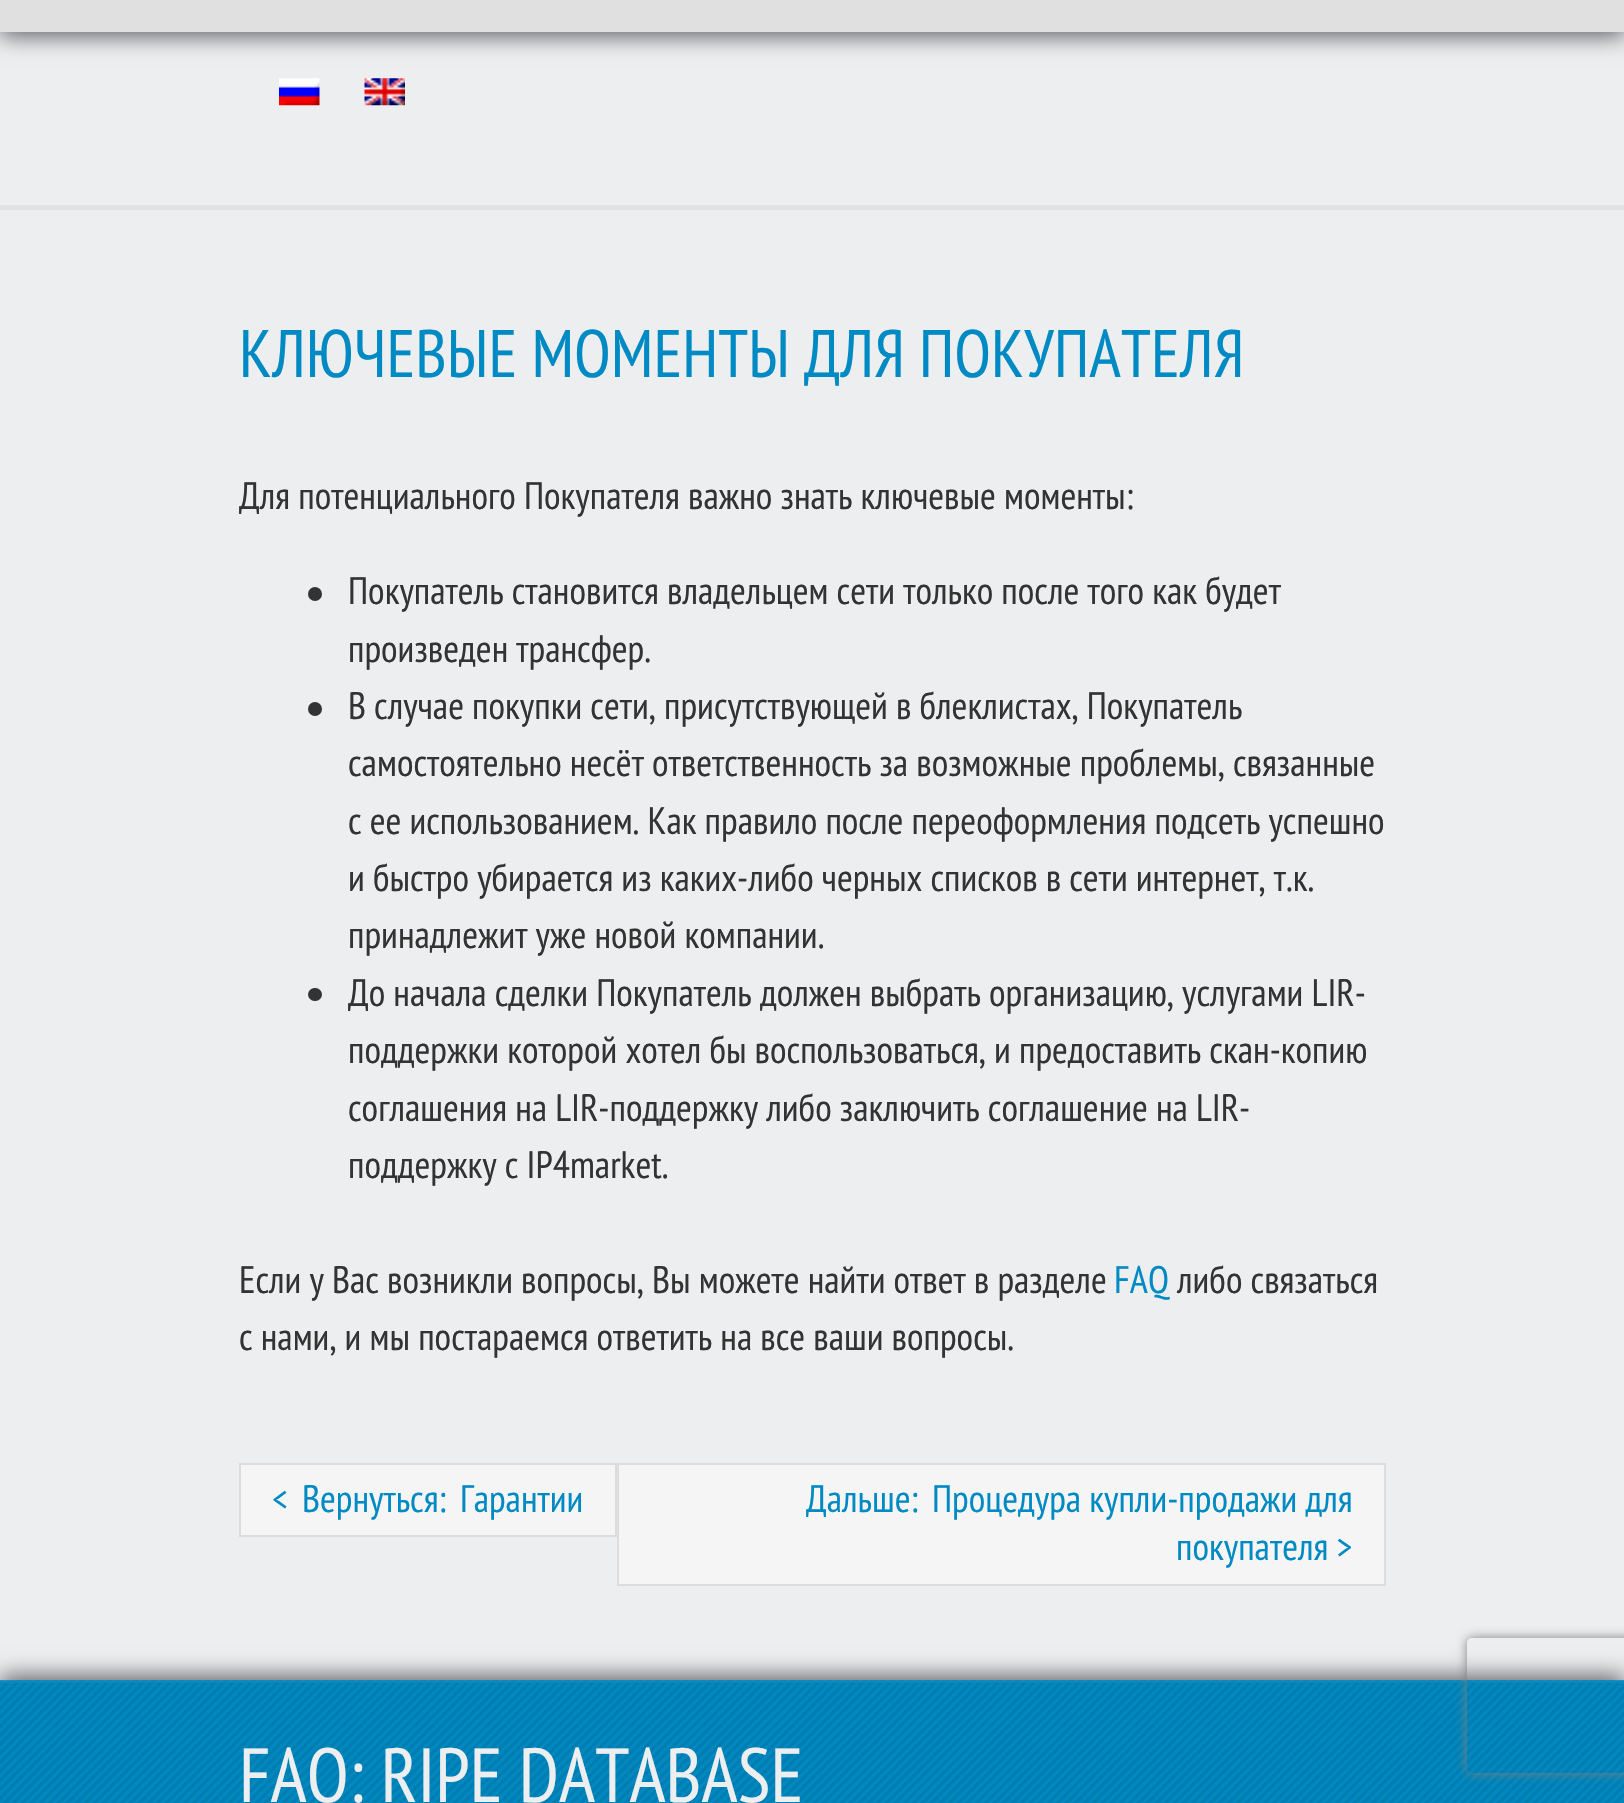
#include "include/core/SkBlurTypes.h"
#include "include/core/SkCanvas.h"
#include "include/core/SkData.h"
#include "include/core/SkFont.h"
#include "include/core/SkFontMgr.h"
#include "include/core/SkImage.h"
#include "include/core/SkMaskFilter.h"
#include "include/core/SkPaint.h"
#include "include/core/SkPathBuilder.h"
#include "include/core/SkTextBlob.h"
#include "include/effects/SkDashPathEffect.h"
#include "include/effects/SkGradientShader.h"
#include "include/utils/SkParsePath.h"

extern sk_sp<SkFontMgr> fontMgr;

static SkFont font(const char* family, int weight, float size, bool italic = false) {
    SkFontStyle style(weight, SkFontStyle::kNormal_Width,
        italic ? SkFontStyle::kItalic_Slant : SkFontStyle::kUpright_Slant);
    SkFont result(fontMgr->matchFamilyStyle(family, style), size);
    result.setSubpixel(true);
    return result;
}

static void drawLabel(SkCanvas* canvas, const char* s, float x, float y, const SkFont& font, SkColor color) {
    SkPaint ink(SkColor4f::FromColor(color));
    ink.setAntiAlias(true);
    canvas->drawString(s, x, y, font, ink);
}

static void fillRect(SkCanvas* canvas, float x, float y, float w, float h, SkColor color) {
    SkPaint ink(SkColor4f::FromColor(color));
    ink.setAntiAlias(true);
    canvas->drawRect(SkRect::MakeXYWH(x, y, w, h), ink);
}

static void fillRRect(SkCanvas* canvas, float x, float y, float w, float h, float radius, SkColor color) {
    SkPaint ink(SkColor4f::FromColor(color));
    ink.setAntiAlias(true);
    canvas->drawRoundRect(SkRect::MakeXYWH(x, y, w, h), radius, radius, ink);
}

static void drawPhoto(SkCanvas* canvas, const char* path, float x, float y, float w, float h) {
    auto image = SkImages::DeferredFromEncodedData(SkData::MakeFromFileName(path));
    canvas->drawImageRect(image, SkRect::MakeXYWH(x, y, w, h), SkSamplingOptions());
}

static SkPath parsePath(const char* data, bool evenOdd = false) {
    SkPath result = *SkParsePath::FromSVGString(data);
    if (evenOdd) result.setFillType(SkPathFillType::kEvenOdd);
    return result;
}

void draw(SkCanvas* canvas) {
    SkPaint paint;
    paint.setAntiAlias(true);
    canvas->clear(0xFFEDEEEF);
    paint.setColor(0xFF5B5E64);
    paint.setMaskFilter(SkMaskFilter::MakeBlur(kNormal_SkBlurStyle, 11));
    canvas->drawRect(SkRect::MakeXYWH(0, -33, 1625, 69), paint);
    paint.setMaskFilter(nullptr);
    fillRect(canvas, 0, 0, 1624, 32, 0xFFE0E0E0);
    fillRect(canvas, 0, 205, 1624, 5, 0xFFE2E2E2);
    drawPhoto(canvas, "assets/img1.png", 279, 78, 41, 28);
    drawPhoto(canvas, "assets/img2.png", 364, 78, 41, 28);
    SkFont font1 = font("PT Sans Narrow", 400, 67);
    drawLabel(canvas, "КЛЮЧЕВЫЕ МОМЕНТЫ ДЛЯ ПОКУПАТЕЛЯ", 239, 377, font1, 0xFF008AC3);
    SkFont font2 = font("PT Sans Narrow", 400, 38.25f);
    drawLabel(canvas, "Для потенциального Покупателя важно знать ключевые моменты:", 239, 509, font2, 0xFF333333);
    paint.setColor(0xFF333333);
    canvas->drawCircle(315, 594, 7, paint);
    drawLabel(canvas, "Покупатель становится владельцем сети только после того как будет", 348, 604, font2, 0xFF333333);
    drawLabel(canvas, "произведен трансфер.", 348, 662, font2, 0xFF333333);
    canvas->drawCircle(315, 709, 7, paint);
    drawLabel(canvas, "В случае покупки сети, присутствующей в блеклистах, Покупатель", 348, 719, font2, 0xFF333333);
    drawLabel(canvas, "самостоятельно несёт ответственность за возможные проблемы, связанные", 348, 776, font2, 0xFF333333);
    drawLabel(canvas, "с ее использованием. Как правило после переоформления подсеть успешно", 348, 834, font2, 0xFF333333);
    drawLabel(canvas, "и быстро убирается из каких-либо черных списков в сети интернет, т.к.", 348, 891, font2, 0xFF333333);
    drawLabel(canvas, "принадлежит уже новой компании.", 348, 948, font2, 0xFF333333);
    fillRRect(canvas, 308, 988, 14, 13, 6.5f, 0xFF333333);
    drawLabel(canvas, "До начала сделки Покупатель должен выбрать организацию, услугами LIR-", 348, 1006, font2, 0xFF333333);
    drawLabel(canvas, "поддержки которой хотел бы воспользоваться, и предоставить скан-копию", 348, 1063, font2, 0xFF333333);
    drawLabel(canvas, "соглашения на LIR-поддержку либо заключить соглашение на LIR-", 348, 1121, font2, 0xFF333333);
    drawLabel(canvas, "поддержку с IP4market.", 348, 1178, font2, 0xFF333333);
    drawLabel(canvas, "Если у Вас возникли вопросы, Вы можете найти ответ в разделе", 239, 1293, font2, 0xFF333333);
    drawLabel(canvas, "FAQ", 1114, 1293, font2, 0xFF008AC3);
    drawLabel(canvas, "либо связаться", 1177, 1293, font2, 0xFF333333);
    drawLabel(canvas, "с нами, и мы постараемся ответить на все ваши вопросы.", 239, 1350, font2, 0xFF333333);
    paint.setColor(0xFFF5F5F5);
    canvas->drawRect(SkRect::MakeXYWH(240, 1464, 376, 72), paint);
    paint.setStroke(true);
    paint.setStrokeWidth(2);
    paint.setColor(0xFFDDDDDD);
    canvas->drawRect(SkRect::MakeXYWH(240, 1464, 376, 72), paint);
    drawLabel(canvas, "<", 272, 1512, font2, 0xFF008AC3);
    drawLabel(canvas, "Вернуться:", 302, 1512, font2, 0xFF008AC3);
    drawLabel(canvas, "Гарантии", 460, 1512, font2, 0xFF008AC3);
    paint.setStroke(false);
    paint.setColor(0xFFF5F5F5);
    canvas->drawRect(SkRect::MakeXYWH(618, 1464, 767, 121), paint);
    paint.setStroke(true);
    paint.setColor(0xFFDDDDDD);
    canvas->drawRect(SkRect::MakeXYWH(618, 1464, 767, 121), paint);
    drawLabel(canvas, "Дальше:", 806, 1512, font2, 0xFF008AC3);
    drawLabel(canvas, "Процедура купли-продажи для", 932, 1512, font2, 0xFF008AC3);
    drawLabel(canvas, "покупателя >", 1176, 1560, font2, 0xFF008AC3);
    paint.setStroke(false);
    paint.setColor(0xFF5B5E64);
    paint.setMaskFilter(SkMaskFilter::MakeBlur(kNormal_SkBlurStyle, 11));
    canvas->drawRect(SkRect::MakeXYWH(0, 1676, 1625, 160), paint);
    paint.setMaskFilter(nullptr);
    drawPhoto(canvas, "assets/img3.png", 0, 1680, 1624, 123);
    fillRect(canvas, 0, 1681, 1624, 2, 0xFF008AC3);
    SkFont font3 = font("PT Sans Narrow", 400, 76.5f);
    drawLabel(canvas, "FAQ: RIPE DATABASE", 239, 1802, font3, 0xFFEDEEEF);
    canvas->save();
    canvas->clipPath(parsePath("M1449 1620H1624V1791H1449ZM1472 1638H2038C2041 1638 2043 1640 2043 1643V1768C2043 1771 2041 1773 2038 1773H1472C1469 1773 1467 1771 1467 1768V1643C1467 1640 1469 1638 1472 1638Z", true), true);
    paint.setColor(0xFF808080);
    paint.setMaskFilter(SkMaskFilter::MakeBlur(kNormal_SkBlurStyle, 5.5f));
    canvas->drawRoundRect(SkRect::MakeXYWH(1467, 1638, 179, 135), 5, 5, paint);
    paint.setMaskFilter(nullptr);
    canvas->restore();
}
